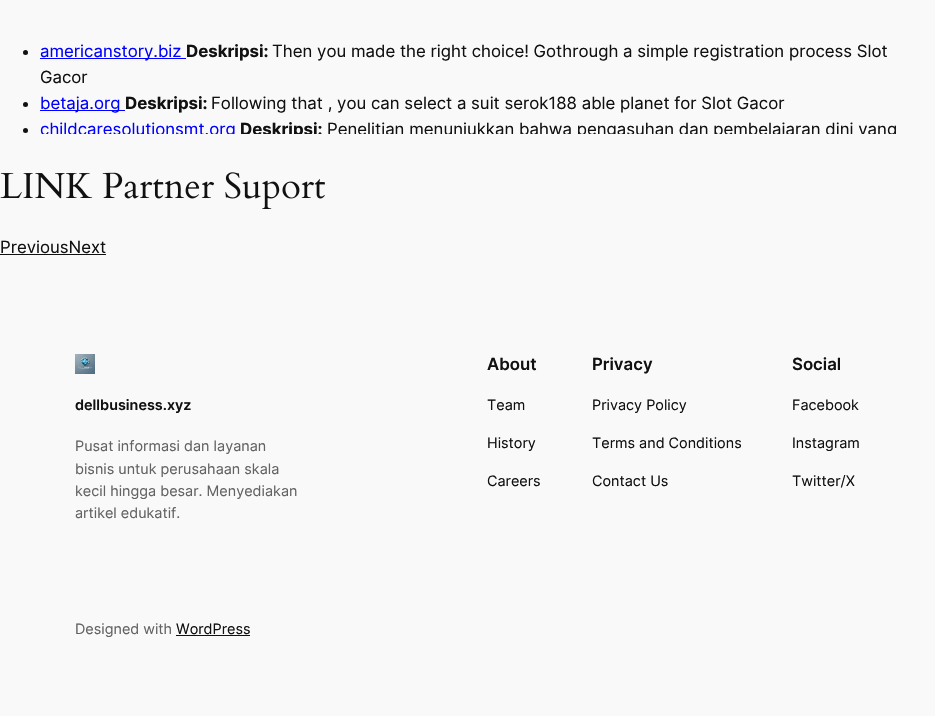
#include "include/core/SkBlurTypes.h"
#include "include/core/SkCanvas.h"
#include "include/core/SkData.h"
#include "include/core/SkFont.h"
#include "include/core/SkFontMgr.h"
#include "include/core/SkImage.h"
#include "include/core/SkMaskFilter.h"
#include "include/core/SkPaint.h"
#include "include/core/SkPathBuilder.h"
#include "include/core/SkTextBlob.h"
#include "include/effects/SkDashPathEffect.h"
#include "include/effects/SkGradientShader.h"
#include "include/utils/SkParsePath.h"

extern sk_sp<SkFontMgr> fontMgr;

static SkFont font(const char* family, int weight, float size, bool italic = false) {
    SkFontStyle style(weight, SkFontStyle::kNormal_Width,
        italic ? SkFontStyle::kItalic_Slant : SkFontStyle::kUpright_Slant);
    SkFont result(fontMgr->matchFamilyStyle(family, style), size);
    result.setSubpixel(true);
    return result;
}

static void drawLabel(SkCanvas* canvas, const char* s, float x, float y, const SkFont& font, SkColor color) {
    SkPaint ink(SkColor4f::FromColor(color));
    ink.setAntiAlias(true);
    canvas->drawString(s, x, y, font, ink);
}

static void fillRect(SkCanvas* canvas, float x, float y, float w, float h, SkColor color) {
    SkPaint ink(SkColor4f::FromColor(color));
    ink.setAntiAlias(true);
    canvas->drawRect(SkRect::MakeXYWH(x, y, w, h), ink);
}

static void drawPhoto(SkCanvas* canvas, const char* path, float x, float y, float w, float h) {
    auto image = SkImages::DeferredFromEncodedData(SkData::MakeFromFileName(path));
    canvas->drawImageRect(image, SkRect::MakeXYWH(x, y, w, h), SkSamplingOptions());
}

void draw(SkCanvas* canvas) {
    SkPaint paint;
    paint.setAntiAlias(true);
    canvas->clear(0xFFF9F9F9);
    paint.setColor(0xFF111111);
    canvas->drawCircle(25.5f, 52.5f, 2.5f, paint);
    fillRect(canvas, 40, 58, 146, 1, 0xFF0000FF);
    SkFont font1 = font("Inter", 400, 16.8f);
    drawLabel(canvas, "americanstory.biz", 40, 57, font1, 0xFF0000FF);
    SkFont font2 = font("Inter", 700, 16.8f);
    drawLabel(canvas, "Deskripsi:", 186, 57, font2, 0xFF111111);
    drawLabel(canvas, "Then you made the right choice! Gothrough a simple registration process Slot", 272, 57, font1, 0xFF111111);
    drawLabel(canvas, "Gacor", 40, 83, font1, 0xFF111111);
    canvas->drawCircle(25.5f, 104.5f, 2.5f, paint);
    fillRect(canvas, 40, 110, 85, 1, 0xFF0000FF);
    drawLabel(canvas, "betaja.org", 40, 109, font1, 0xFF0000FF);
    drawLabel(canvas, "Deskripsi:", 125, 109, font2, 0xFF111111);
    drawLabel(canvas, "Following that , you can select a suit serok188 able planet for Slot Gacor", 211, 109, font1, 0xFF111111);
    canvas->drawCircle(25.5f, 130.5f, 2.5f, paint);
    canvas->save();
    canvas->clipRect(SkRect::MakeXYWH(0, 0, 935, 134));
    drawLabel(canvas, "childcaresolutionsmt.org", 40, 135, font1, 0xFF0000FF);
    drawLabel(canvas, "Deskripsi:", 240, 135, font2, 0xFF111111);
    drawLabel(canvas, "Penelitian menunjukkan bahwa pengasuhan dan pembelajaran dini yang", 327, 135, font1, 0xFF111111);
    canvas->restore();
    drawPhoto(canvas, "assets/img1.png", 0, 172, 325, 37);
    drawLabel(canvas, "PreviousNext", 0, 253, font1, 0xFF111111);
    fillRect(canvas, 0, 254, 106, 1, 0xFF111111);
    drawPhoto(canvas, "assets/img2.png", 75, 354, 20, 20);
    SkFont font3 = font("Inter", 600, 14.4f);
    drawLabel(canvas, "dellbusiness.xyz", 75, 410, font3, 0xFF111111);
    SkFont font4 = font("Inter", 400, 14.4f);
    drawLabel(canvas, "Pusat informasi dan layanan", 75, 451, font4, 0xFF636363);
    drawLabel(canvas, "bisnis untuk perusahaan skala", 75, 474, font4, 0xFF636363);
    drawLabel(canvas, "kecil hingga besar. Menyediakan", 75, 496, font4, 0xFF636363);
    drawLabel(canvas, "artikel edukatif.", 75, 518, font4, 0xFF636363);
    SkFont font5 = font("Inter", 600, 16.8f);
    drawLabel(canvas, "About", 487, 370, font5, 0xFF111111);
    drawLabel(canvas, "Team", 487, 410, font4, 0xFF111111);
    drawLabel(canvas, "History", 487, 448, font4, 0xFF111111);
    drawLabel(canvas, "Careers", 487, 486, font4, 0xFF111111);
    drawLabel(canvas, "Privacy", 592, 370, font5, 0xFF111111);
    drawLabel(canvas, "Privacy Policy", 592, 410, font4, 0xFF111111);
    drawLabel(canvas, "Terms and Conditions", 592, 448, font4, 0xFF111111);
    drawLabel(canvas, "Contact Us", 592, 486, font4, 0xFF111111);
    drawLabel(canvas, "Social", 792, 370, font5, 0xFF111111);
    drawLabel(canvas, "Facebook", 792, 410, font4, 0xFF111111);
    drawLabel(canvas, "Instagram", 792, 448, font4, 0xFF111111);
    drawLabel(canvas, "Twitter/X", 792, 486, font4, 0xFF111111);
    drawLabel(canvas, "Designed with", 75, 634, font4, 0xFF636363);
    drawLabel(canvas, "WordPress", 176, 634, font4, 0xFF111111);
    fillRect(canvas, 176, 635, 74, 1, 0xFF111111);
}
